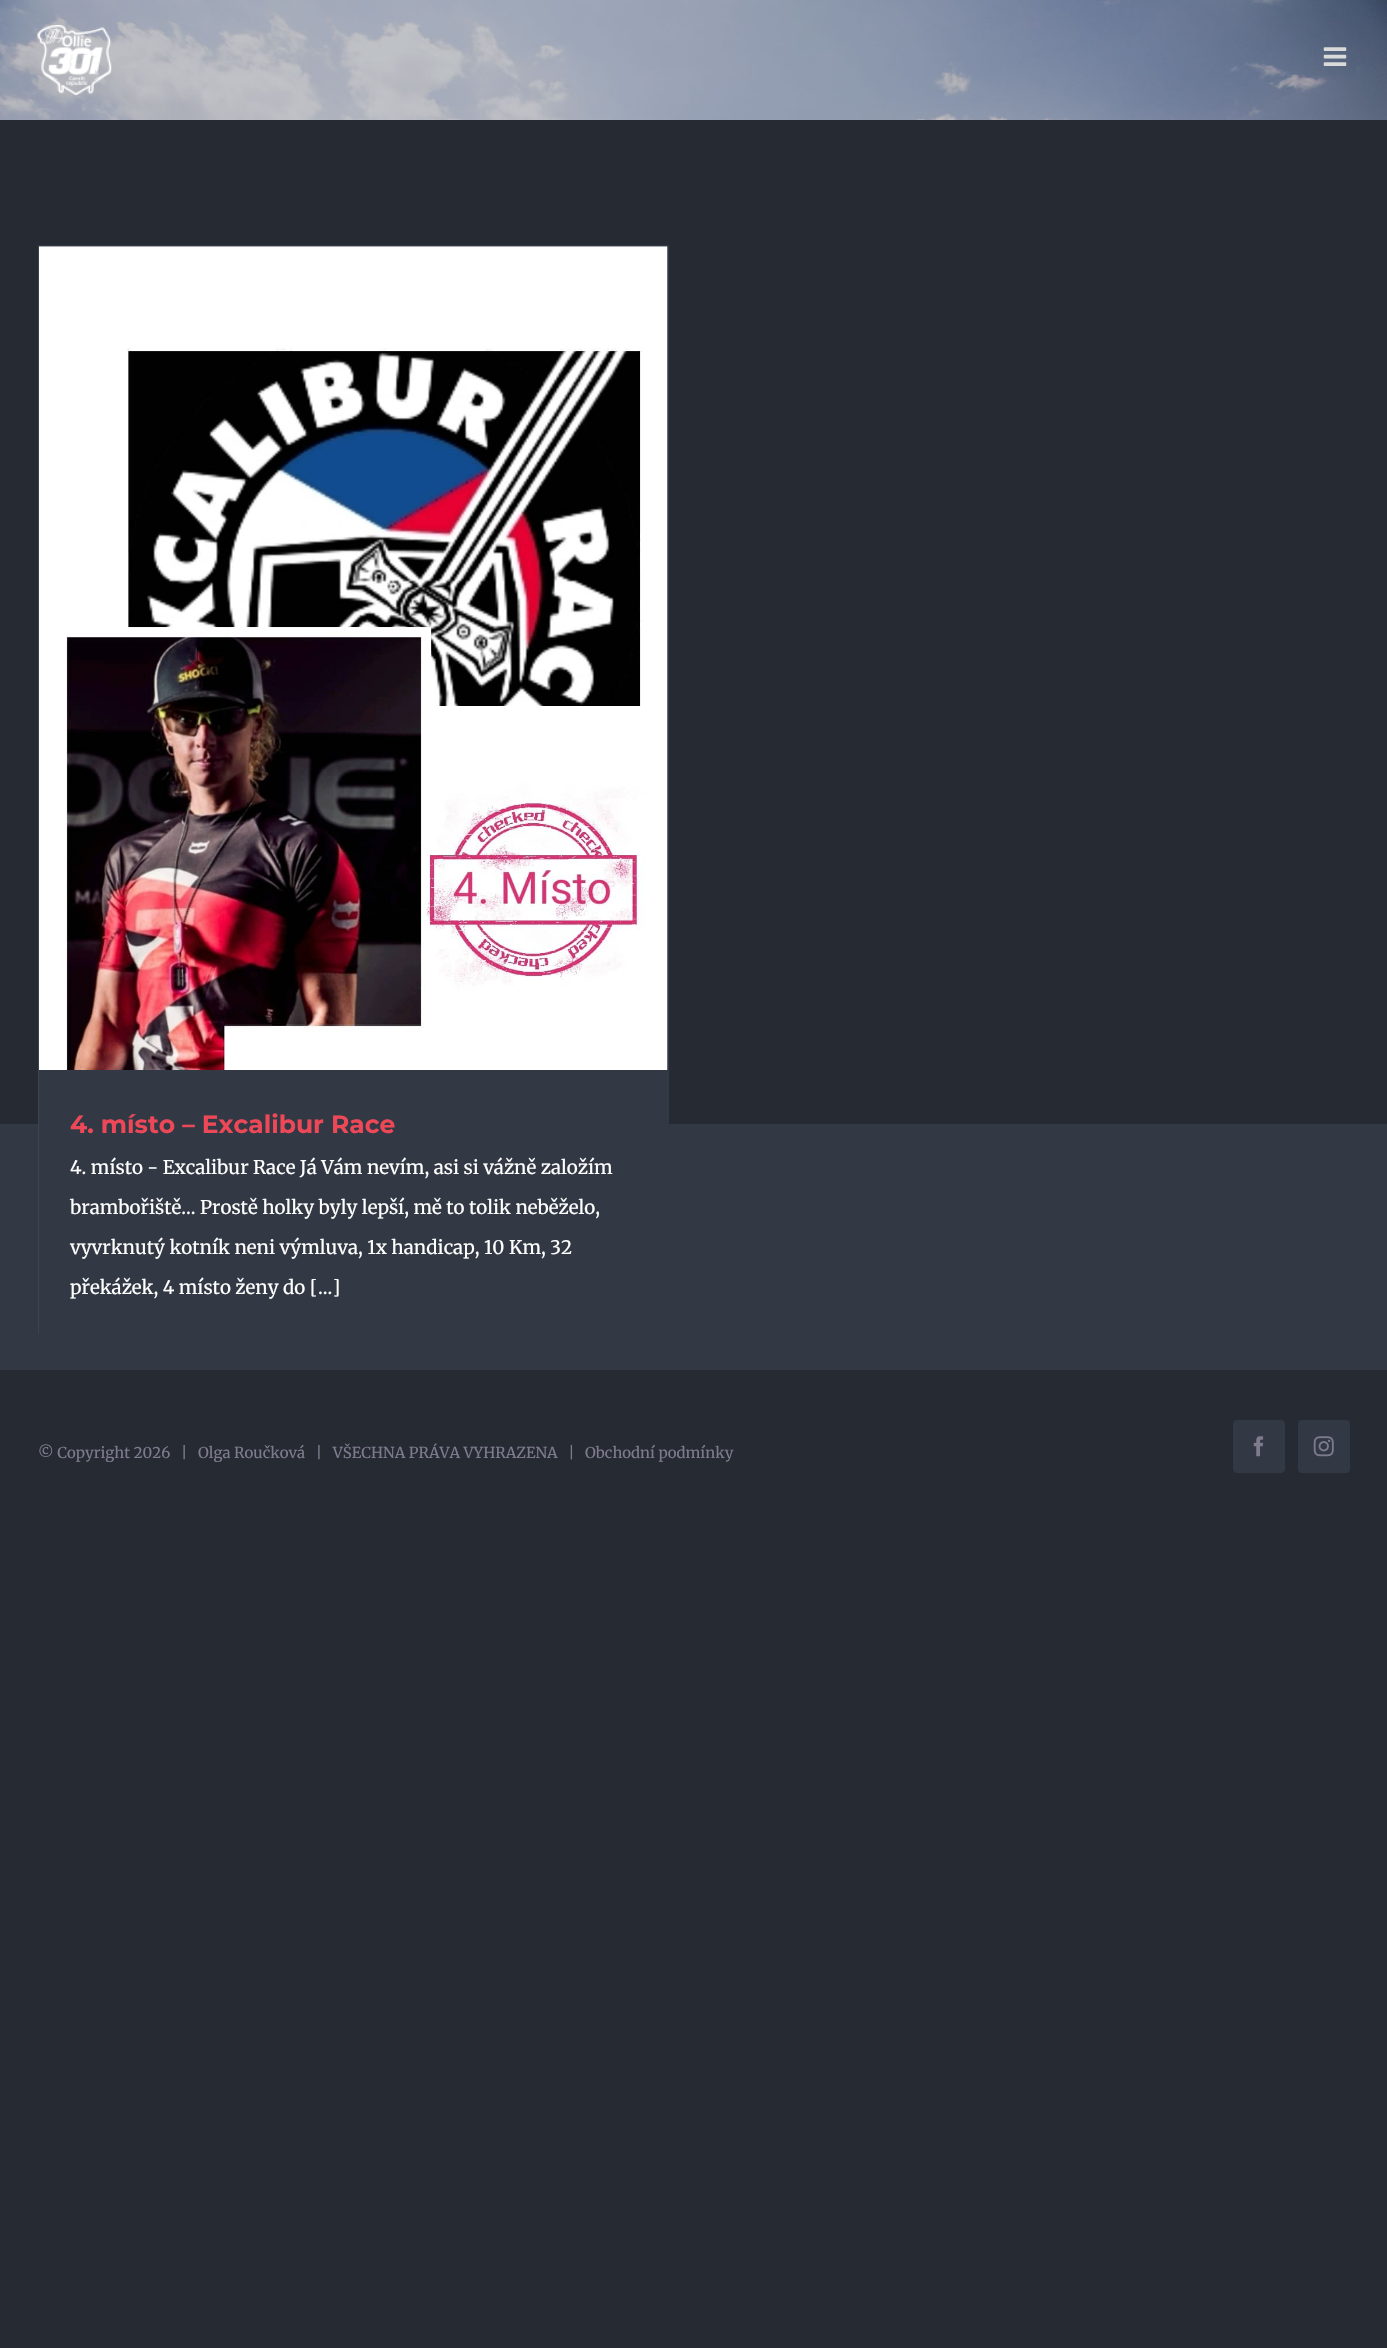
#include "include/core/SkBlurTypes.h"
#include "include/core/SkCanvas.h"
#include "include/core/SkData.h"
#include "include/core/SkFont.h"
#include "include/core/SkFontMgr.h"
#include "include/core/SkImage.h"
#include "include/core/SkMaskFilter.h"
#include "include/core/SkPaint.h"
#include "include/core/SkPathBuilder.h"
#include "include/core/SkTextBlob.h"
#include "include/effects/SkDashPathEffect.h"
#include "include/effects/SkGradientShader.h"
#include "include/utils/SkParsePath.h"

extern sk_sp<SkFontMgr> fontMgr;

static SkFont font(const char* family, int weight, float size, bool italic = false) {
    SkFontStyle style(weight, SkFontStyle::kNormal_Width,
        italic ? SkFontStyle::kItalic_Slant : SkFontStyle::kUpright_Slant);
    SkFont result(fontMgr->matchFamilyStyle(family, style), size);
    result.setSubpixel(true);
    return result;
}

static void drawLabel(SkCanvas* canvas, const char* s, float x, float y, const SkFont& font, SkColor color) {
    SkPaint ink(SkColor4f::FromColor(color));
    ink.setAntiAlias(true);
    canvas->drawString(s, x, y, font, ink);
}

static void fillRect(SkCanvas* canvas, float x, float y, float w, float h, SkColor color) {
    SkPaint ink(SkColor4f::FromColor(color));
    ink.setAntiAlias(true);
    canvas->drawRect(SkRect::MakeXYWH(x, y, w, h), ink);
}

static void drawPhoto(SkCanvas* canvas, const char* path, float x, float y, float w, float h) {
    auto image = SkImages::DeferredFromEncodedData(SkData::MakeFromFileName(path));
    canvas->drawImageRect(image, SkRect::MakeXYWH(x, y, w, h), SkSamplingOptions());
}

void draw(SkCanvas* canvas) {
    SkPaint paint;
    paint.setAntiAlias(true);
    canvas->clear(0xFF252A33);
    drawPhoto(canvas, "assets/img1.png", 0, 0, 1387, 120);
    drawPhoto(canvas, "assets/img2.png", 37, 25, 75, 70);
    drawPhoto(canvas, "assets/img3.png", 1323, 47, 24, 19);
    fillRect(canvas, 39, 246, 629, 824, 0xFF323844);
    fillRect(canvas, 38, 245, 631, 1, 0xFF323844);
    fillRect(canvas, 668, 245, 1, 879, 0xFF323844);
    fillRect(canvas, 38, 245, 1, 879, 0xFF323844);
    fillRect(canvas, 0, 1124, 1387, 246, 0xFF323844);
    drawPhoto(canvas, "assets/img4.png", 38, 246, 630, 1088);
    fillRect(canvas, 39, 1070, 629, 264, 0xFF323844);
    SkFont font1 = font("Montserrat", 700, 25);
    drawLabel(canvas, "4. místo – Excalibur Race", 70, 1133, font1, 0xFFEC4858);
    SkFont font2 = font("Merriweather", 400, 18.75f);
    drawLabel(canvas, "4. místo - Excalibur Race Já Vám nevím, asi si vážně založím", 70, 1174, font2, 0xFFFFFFFF);
    drawLabel(canvas, "brambořiště... Prostě holky byly lepší, mě to tolik neběželo,", 70, 1214, font2, 0xFFFFFFFF);
    drawLabel(canvas, "vyvrknutý kotník neni výmluva, 1x handicap, 10 Km, 32", 70, 1254, font2, 0xFFFFFFFF);
    drawLabel(canvas, "překážek, 4 místo ženy do [...]", 70, 1294, font2, 0xFFFFFFFF);
    SkFont font3 = font("Merriweather", 400, 15);
    drawLabel(canvas, "© Copyright 2026   |   Olga Roučková   |   VŠECHNA PRÁVA VYHRAZENA   |", 38, 1458, font3, 0xFF7D7B8D);
    drawLabel(canvas, "Obchodní podmínky", 585, 1458, font3, 0xFF7D7B8D);
    paint.setColor(0xFF323844);
    canvas->drawRoundRect(SkRect::MakeXYWH(1233.5f, 1420.5f, 51, 52), 3.5f, 3.5f, paint);
    paint.setStroke(true);
    paint.setStrokeWidth(1);
    canvas->drawRoundRect(SkRect::MakeXYWH(1233.5f, 1420.5f, 51, 52), 3.5f, 3.5f, paint);
    drawPhoto(canvas, "assets/img5.png", 1253, 1436, 11, 21);
    paint.setStroke(false);
    canvas->drawRoundRect(SkRect::MakeXYWH(1298.5f, 1420.5f, 51, 52), 3.5f, 3.5f, paint);
    paint.setStroke(true);
    canvas->drawRoundRect(SkRect::MakeXYWH(1298.5f, 1420.5f, 51, 52), 3.5f, 3.5f, paint);
    drawPhoto(canvas, "assets/img6.png", 1313, 1436, 21, 21);
}
